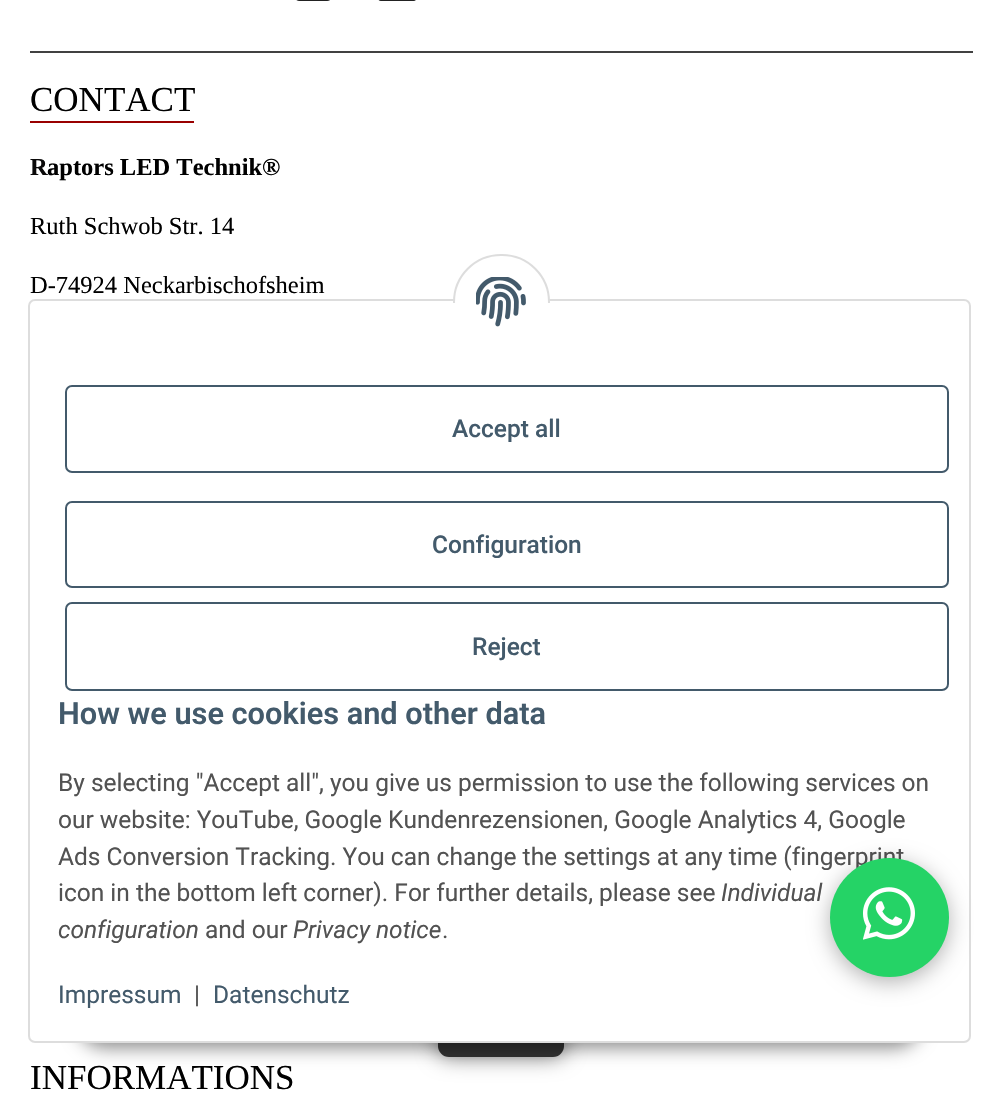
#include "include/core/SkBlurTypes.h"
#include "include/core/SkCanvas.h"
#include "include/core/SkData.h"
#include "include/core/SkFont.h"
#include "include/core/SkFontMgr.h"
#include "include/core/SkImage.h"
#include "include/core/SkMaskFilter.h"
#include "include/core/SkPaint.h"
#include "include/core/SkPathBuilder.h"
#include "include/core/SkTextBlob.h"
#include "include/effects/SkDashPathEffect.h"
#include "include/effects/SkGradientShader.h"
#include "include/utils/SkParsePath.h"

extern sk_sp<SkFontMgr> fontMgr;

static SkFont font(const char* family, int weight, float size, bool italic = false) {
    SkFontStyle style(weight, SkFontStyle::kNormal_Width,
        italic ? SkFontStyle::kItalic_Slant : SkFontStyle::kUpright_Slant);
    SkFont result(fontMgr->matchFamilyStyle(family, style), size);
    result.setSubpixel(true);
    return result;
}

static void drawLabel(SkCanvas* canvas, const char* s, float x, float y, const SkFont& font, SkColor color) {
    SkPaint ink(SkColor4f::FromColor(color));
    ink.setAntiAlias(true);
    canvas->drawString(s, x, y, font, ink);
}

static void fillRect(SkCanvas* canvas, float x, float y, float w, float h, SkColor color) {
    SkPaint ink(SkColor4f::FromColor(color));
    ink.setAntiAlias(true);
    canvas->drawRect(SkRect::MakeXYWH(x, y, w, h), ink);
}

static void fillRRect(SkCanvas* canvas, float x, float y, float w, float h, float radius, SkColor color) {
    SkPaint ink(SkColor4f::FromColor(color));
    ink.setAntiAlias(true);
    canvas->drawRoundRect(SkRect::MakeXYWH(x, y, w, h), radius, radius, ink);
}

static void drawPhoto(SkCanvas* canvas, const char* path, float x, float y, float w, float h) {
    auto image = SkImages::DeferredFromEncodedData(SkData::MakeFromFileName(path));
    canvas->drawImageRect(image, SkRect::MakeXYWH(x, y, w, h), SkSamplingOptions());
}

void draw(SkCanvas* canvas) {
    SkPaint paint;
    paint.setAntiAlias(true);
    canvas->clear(0xFFFFFFFF);
    drawPhoto(canvas, "assets/img1.png", 296, 0, 34, 1);
    drawPhoto(canvas, "assets/img2.png", 378, 0, 38, 1);
    fillRect(canvas, 30, 51, 943, 2, 0xFF414141);
    SkFont font1 = font("Liberation Serif", 400, 35);
    drawLabel(canvas, "CONTACT", 30, 111, font1, 0xFF000000);
    fillRect(canvas, 30, 121, 164, 2, 0xFF990000);
    SkFont font2 = font("Liberation Serif", 700, 24.5f);
    drawLabel(canvas, "R", 30, 175, font2, 0xFF0A0909);
    drawLabel(canvas, "aptors LED Technik®", 47, 175, font2, 0xFF000000);
    SkFont font3 = font("Liberation Serif", 400, 24.5f);
    drawLabel(canvas, "Ruth Schwob Str. 14", 30, 234, font3, 0xFF000000);
    drawLabel(canvas, "D-74924 Neckarbischofsheim", 30, 293, font3, 0xFF000000);
    drawLabel(canvas, "INFORMATIONS", 30, 1089, font1, 0xFF000000);
    paint.setColor(0x80000000);
    paint.setMaskFilter(SkMaskFilter::MakeBlur(kNormal_SkBlurStyle, 10.5f));
    canvas->drawRoundRect(SkRect::MakeXYWH(438, 956, 126, 101), 11, 11, paint);
    paint.setMaskFilter(nullptr);
    fillRRect(canvas, 438, 956, 126, 101, 11, 0xFF323232);
    paint.setColor(0x73000000);
    paint.setMaskFilter(SkMaskFilter::MakeBlur(kNormal_SkBlurStyle, 9));
    canvas->drawRoundRect(SkRect::MakeXYWH(77, 992, 845, 56), 28, 28, paint);
    paint.setMaskFilter(nullptr);
    paint.setColor(0xFFFFFFFF);
    canvas->drawRoundRect(SkRect::MakeXYWH(29, 300, 941, 742), 6, 6, paint);
    paint.setStroke(true);
    paint.setStrokeWidth(2);
    paint.setColor(0xFFDDDDDD);
    canvas->drawRoundRect(SkRect::MakeXYWH(29, 300, 941, 742), 6, 6, paint);
    paint.setStroke(false);
    paint.setColor(0xFFFFFFFF);
    canvas->drawRoundRect(SkRect::MakeXYWH(454, 255, 95, 94), 47, 47, paint);
    paint.setStroke(true);
    paint.setColor(0xFFDDDDDD);
    canvas->drawRoundRect(SkRect::MakeXYWH(454, 255, 95, 94), 47, 47, paint);
    fillRect(canvas, 453, 303, 97, 47, 0xFFFFFFFF);
    drawPhoto(canvas, "assets/img3.png", 476, 277, 50, 50);
    paint.setColor(0xFF435A6B);
    canvas->drawRoundRect(SkRect::MakeXYWH(66, 386, 882, 86), 6, 6, paint);
    SkFont font4 = font("Roboto", 500, 24.5f);
    drawLabel(canvas, "Accept all", 452, 437, font4, 0xFF435A6B);
    canvas->drawRoundRect(SkRect::MakeXYWH(66, 502, 882, 85), 6, 6, paint);
    drawLabel(canvas, "Configuration", 432, 553, font4, 0xFF435A6B);
    canvas->drawRoundRect(SkRect::MakeXYWH(66, 603, 882, 87), 6, 6, paint);
    drawLabel(canvas, "Reject", 472, 655, font4, 0xFF435A6B);
    SkFont font5 = font("Roboto", 600, 30.75f);
    drawLabel(canvas, "How we use cookies and other data", 58, 724, font5, 0xFF435A6B);
    SkFont font6 = font("Roboto", 400, 24.5f);
    drawLabel(canvas, "By selecting \"Accept all\", you give us permission to use the following services on", 58, 791, font6, 0xFF525252);
    drawLabel(canvas, "our website: YouTube, Google Kundenrezensionen, Google Analytics 4, Google", 58, 828, font6, 0xFF525252);
    drawLabel(canvas, "Ads Conversion Tracking. You can change the settings at any time (fingerprint", 58, 865, font6, 0xFF525252);
    drawLabel(canvas, "icon in the bottom left corner). For further details, please see", 58, 901, font6, 0xFF525252);
    SkFont font7 = font("Roboto", 400, 24.5f, true);
    drawLabel(canvas, "Individual", 721, 901, font7, 0xFF525252);
    drawLabel(canvas, "configuration", 58, 938, font7, 0xFF525252);
    drawLabel(canvas, "and our", 205, 938, font6, 0xFF525252);
    drawLabel(canvas, "Privacy notice", 293, 938, font7, 0xFF525252);
    drawLabel(canvas, ".", 442, 938, font6, 0xFF525252);
    drawLabel(canvas, "Impressum", 58, 1003, font6, 0xFF435A6B);
    drawLabel(canvas, "|", 194, 1003, font6, 0xFF525252);
    drawLabel(canvas, "Datenschutz", 213, 1003, font6, 0xFF435A6B);
    paint.setStroke(false);
    paint.setColor(0x4D000000);
    paint.setMaskFilter(SkMaskFilter::MakeBlur(kNormal_SkBlurStyle, 10.5f));
    canvas->drawRoundRect(SkRect::MakeXYWH(830, 863, 119, 119), 59.5f, 59.5f, paint);
    paint.setMaskFilter(nullptr);
    paint.setColor(0xFF25D366);
    canvas->drawCircle(889.5f, 917.5f, 59.5f, paint);
    drawPhoto(canvas, "assets/img4.png", 863, 887, 52, 53);
}
